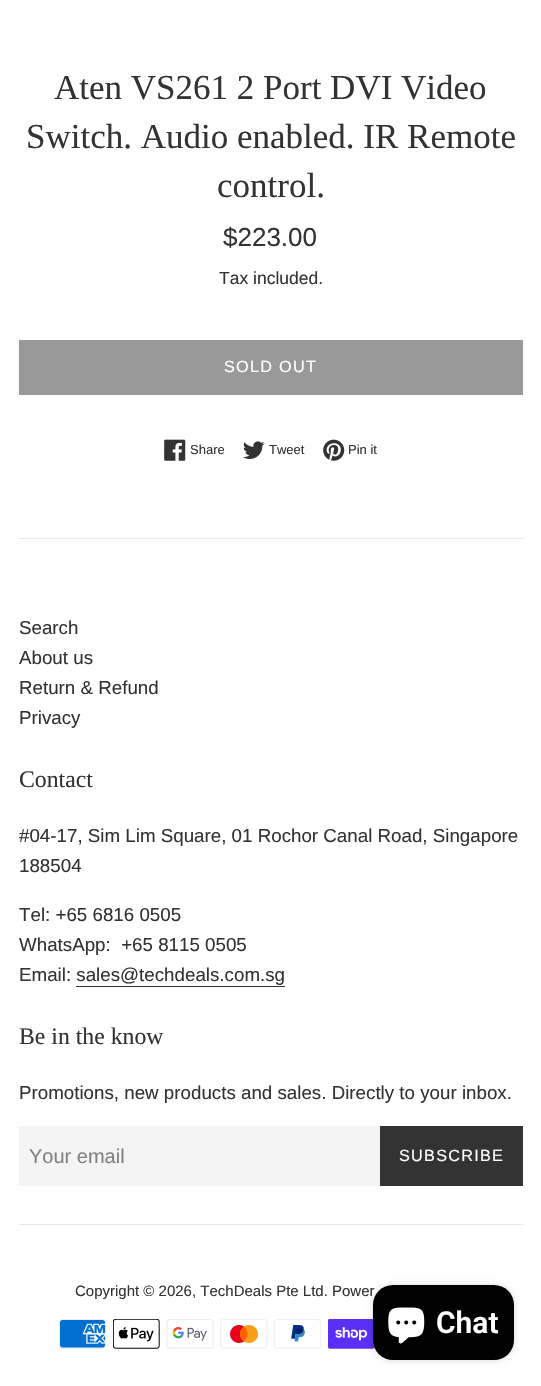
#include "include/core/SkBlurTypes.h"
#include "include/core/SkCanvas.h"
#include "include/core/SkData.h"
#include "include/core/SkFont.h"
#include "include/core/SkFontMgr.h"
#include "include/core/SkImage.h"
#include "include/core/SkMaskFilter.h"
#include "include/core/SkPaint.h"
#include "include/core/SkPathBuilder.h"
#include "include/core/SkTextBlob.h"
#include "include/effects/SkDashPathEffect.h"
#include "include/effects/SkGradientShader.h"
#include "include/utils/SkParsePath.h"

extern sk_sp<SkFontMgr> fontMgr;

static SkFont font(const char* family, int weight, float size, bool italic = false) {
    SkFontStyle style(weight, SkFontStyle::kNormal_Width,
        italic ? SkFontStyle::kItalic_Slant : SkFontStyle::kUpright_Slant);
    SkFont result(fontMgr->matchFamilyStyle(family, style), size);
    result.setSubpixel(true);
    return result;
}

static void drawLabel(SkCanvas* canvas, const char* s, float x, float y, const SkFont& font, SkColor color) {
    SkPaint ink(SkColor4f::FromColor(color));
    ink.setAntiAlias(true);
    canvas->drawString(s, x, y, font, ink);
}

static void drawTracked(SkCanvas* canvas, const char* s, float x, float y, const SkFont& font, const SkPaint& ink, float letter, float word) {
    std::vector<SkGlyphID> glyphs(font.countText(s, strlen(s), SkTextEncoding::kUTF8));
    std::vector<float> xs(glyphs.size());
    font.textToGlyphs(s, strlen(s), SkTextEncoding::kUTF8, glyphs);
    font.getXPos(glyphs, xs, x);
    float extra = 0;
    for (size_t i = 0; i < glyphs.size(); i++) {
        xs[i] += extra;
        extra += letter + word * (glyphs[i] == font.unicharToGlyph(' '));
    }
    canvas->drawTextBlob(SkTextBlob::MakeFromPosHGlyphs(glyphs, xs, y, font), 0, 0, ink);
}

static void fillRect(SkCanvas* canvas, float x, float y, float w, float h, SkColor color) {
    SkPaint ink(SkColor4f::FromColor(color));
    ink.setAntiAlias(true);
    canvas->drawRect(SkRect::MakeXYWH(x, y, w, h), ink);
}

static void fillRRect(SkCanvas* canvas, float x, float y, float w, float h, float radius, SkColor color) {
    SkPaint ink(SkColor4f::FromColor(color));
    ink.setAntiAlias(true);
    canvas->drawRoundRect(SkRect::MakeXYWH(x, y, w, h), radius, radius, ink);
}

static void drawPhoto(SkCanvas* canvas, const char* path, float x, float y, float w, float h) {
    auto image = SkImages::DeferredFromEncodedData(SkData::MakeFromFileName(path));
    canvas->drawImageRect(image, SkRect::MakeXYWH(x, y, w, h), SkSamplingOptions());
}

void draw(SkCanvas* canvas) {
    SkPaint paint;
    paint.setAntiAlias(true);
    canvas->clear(0xFFFFFFFF);
    fillRect(canvas, 356, 0, 1, 3, 0xFFFAFAFA);
    SkFont font1 = font("Liberation Serif", 400, 35);
    drawLabel(canvas, "Aten VS261 2 Port DVI Video", 54, 99, font1, 0xFF333333);
    drawLabel(canvas, "Switch. Audio enabled. IR Remote", 26, 148, font1, 0xFF333333);
    drawLabel(canvas, "control.", 217, 197, font1, 0xFF333333);
    SkFont font2 = font("Liberation Sans", 400, 26);
    drawLabel(canvas, "$223.00", 223, 246, font2, 0xFF333333);
    SkFont font3 = font("Liberation Sans", 400, 17.5f);
    drawLabel(canvas, "Tax included.", 219, 284, font3, 0xFF333333);
    fillRect(canvas, 19, 340, 504, 55, 0xFF999999);
    SkFont font4 = font("Liberation Sans", 400, 16.25f);
    paint.setColor(0xFFFFFFFF);
    drawTracked(canvas, "SOLD OUT", 224, 372, font4, paint, 1.25f, 0);
    drawPhoto(canvas, "assets/img1.png", 164, 439, 22, 22);
    SkFont font5 = font("Liberation Sans", 400, 13);
    drawLabel(canvas, "Share", 190, 454, font5, 0xFF333333);
    drawPhoto(canvas, "assets/img2.png", 243, 441, 22, 18);
    drawLabel(canvas, "Tweet", 269, 454, font5, 0xFF333333);
    drawPhoto(canvas, "assets/img3.png", 323, 439, 22, 22);
    drawLabel(canvas, "Pin it", 348, 454, font5, 0xFF333333);
    fillRect(canvas, 19, 538, 504, 1, 0xFFE8E8E8);
    SkFont font6 = font("Liberation Sans", 400, 18.75f);
    drawLabel(canvas, "Search", 19, 634, font6, 0xFF333333);
    drawLabel(canvas, "About us", 19, 664, font6, 0xFF333333);
    drawLabel(canvas, "Return & Refund", 19, 694, font6, 0xFF333333);
    drawLabel(canvas, "Privacy", 19, 724, font6, 0xFF333333);
    SkFont font7 = font("Liberation Serif", 400, 23.75f);
    drawLabel(canvas, "Contact", 19, 787, font7, 0xFF333333);
    drawLabel(canvas, "#04-17, Sim Lim Square, 01 Rochor Canal Road, Singapore", 19, 842, font6, 0xFF333333);
    drawLabel(canvas, "188504", 19, 872, font6, 0xFF333333);
    drawLabel(canvas, "Tel: +65 6816 0505", 19, 921, font6, 0xFF333333);
    drawLabel(canvas, "WhatsApp:  +65 8115 0505", 19, 951, font6, 0xFF333333);
    drawLabel(canvas, "Email: sales@techdeals.com.sg", 19, 981, font6, 0xFF333333);
    fillRect(canvas, 76, 986, 209, 1, 0xFF333333);
    drawLabel(canvas, "Be in the know", 19, 1044, font7, 0xFF333333);
    drawLabel(canvas, "Promotions, new products and sales. Directly to your inbox.", 19, 1099, font6, 0xFF333333);
    fillRect(canvas, 19, 1126, 361, 60, 0xFFF4F4F4);
    SkFont font8 = font("Liberation Sans", 400, 20);
    drawLabel(canvas, "Your email", 29, 1163, font8, 0xFF808080);
    fillRect(canvas, 380, 1126, 143, 60, 0xFF333333);
    drawTracked(canvas, "SUBSCRIBE", 399, 1161, font4, paint, 1.25f, 0);
    fillRect(canvas, 19, 1224, 504, 1, 0xFFE8E8E8);
    SkFont font9 = font("Liberation Sans", 400, 15);
    drawLabel(canvas, "Copyright © 2026, TechDeals Pte Ltd. Power", 75, 1296, font9, 0xFF333333);
    drawPhoto(canvas, "assets/img4.png", 59, 1319, 47, 30);
    drawPhoto(canvas, "assets/img5.png", 113, 1319, 47, 30);
    drawPhoto(canvas, "assets/img6.png", 166, 1319, 48, 30);
    drawPhoto(canvas, "assets/img7.png", 220, 1319, 48, 30);
    drawPhoto(canvas, "assets/img8.png", 274, 1319, 47, 30);
    drawPhoto(canvas, "assets/img9.png", 328, 1319, 47, 30);
    paint.setColor(0x26000000);
    paint.setMaskFilter(SkMaskFilter::MakeBlur(kNormal_SkBlurStyle, 3));
    canvas->drawRoundRect(SkRect::MakeXYWH(373, 1285, 141, 75), 20, 20, paint);
    paint.setMaskFilter(nullptr);
    fillRRect(canvas, 373, 1285, 141, 75, 20, 0xFF000000);
    drawPhoto(canvas, "assets/img10.png", 388, 1307, 37, 37);
    SkFont font10 = font("Roboto", 600, 30);
    drawLabel(canvas, "Chat", 436, 1333, font10, 0xFFFFFFFF);
}
